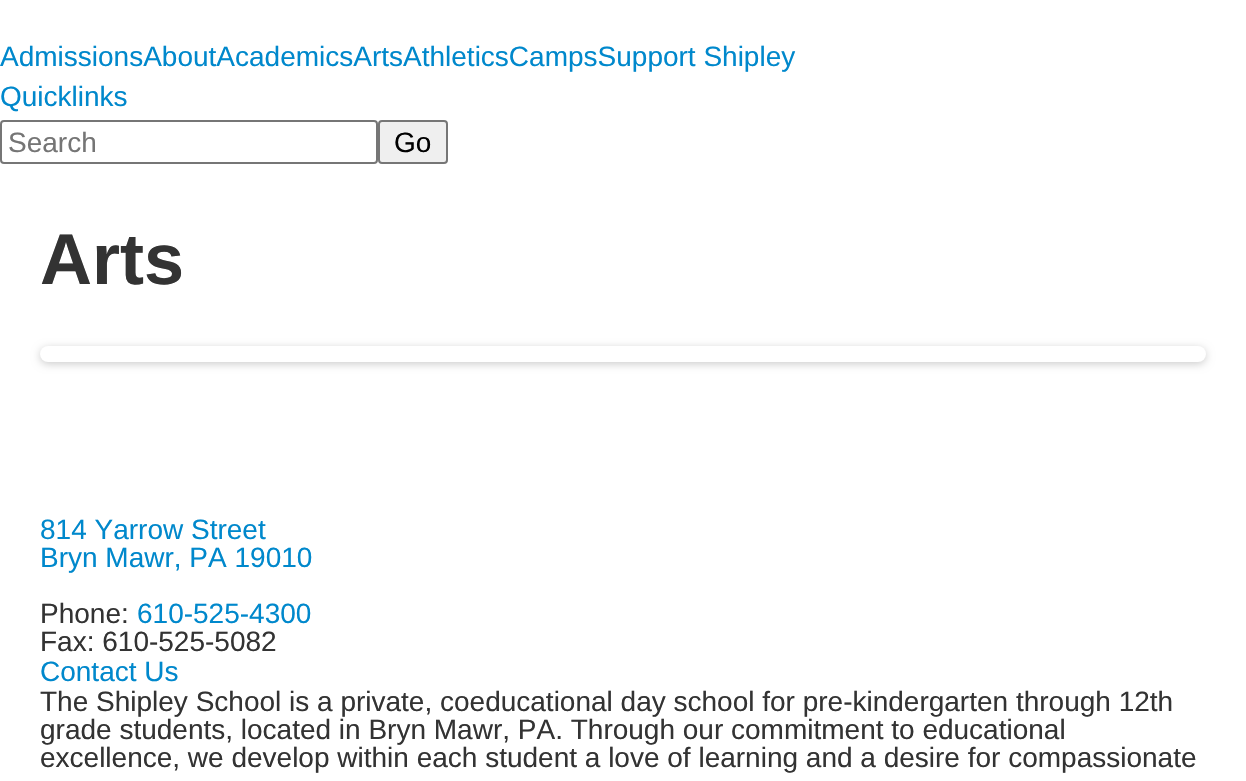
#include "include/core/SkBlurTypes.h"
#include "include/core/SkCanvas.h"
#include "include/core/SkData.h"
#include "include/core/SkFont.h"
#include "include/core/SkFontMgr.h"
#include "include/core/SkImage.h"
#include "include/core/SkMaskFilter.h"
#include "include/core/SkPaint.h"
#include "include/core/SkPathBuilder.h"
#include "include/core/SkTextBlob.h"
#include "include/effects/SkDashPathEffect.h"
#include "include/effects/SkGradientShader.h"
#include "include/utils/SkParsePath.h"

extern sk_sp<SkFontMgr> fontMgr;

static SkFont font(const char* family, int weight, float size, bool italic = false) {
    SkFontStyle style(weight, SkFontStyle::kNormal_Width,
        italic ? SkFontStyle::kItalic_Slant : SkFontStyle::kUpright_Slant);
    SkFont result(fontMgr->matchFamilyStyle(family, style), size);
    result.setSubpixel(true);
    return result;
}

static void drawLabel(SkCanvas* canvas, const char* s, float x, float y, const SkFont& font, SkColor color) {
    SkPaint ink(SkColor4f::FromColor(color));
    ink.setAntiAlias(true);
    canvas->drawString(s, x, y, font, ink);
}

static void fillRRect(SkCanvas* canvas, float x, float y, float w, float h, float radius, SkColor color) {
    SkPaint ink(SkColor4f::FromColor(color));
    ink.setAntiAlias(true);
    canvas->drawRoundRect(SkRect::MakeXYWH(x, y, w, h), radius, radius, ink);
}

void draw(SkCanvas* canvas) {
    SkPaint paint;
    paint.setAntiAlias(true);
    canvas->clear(0xFFFFFFFF);
    SkFont font1 = font("Liberation Sans", 400, 28);
    drawLabel(canvas, "AdmissionsAboutAcademicsArtsAthleticsCampsSupport Shipley", 0, 66, font1, 0xFF0088CC);
    drawLabel(canvas, "Quicklinks", 0, 106, font1, 0xFF0088CC);
    paint.setStroke(true);
    paint.setStrokeWidth(2);
    paint.setColor(0xFF767676);
    canvas->drawRoundRect(SkRect::MakeXYWH(1, 121, 376, 42), 3, 3, paint);
    drawLabel(canvas, "Search", 8, 152, font1, 0xFF757575);
    paint.setStroke(false);
    paint.setColor(0xFFEFEFEF);
    canvas->drawRoundRect(SkRect::MakeXYWH(379, 121, 68, 42), 3, 3, paint);
    paint.setStroke(true);
    paint.setColor(0xFF767676);
    canvas->drawRoundRect(SkRect::MakeXYWH(379, 121, 68, 42), 3, 3, paint);
    drawLabel(canvas, "Go", 394, 152, font1, 0xFF000000);
    SkFont font2 = font("Liberation Sans", 700, 72);
    drawLabel(canvas, "Arts", 40, 284, font2, 0xFF333333);
    paint.setStroke(false);
    paint.setColor(0x33000000);
    paint.setMaskFilter(SkMaskFilter::MakeBlur(kNormal_SkBlurStyle, 4));
    canvas->drawRoundRect(SkRect::MakeXYWH(40, 348, 1166, 16), 8, 8, paint);
    paint.setMaskFilter(nullptr);
    fillRRect(canvas, 40, 346, 1166, 16, 8, 0xFFFFFFFF);
    drawLabel(canvas, "814 Yarrow Street", 40, 539, font1, 0xFF0088CC);
    drawLabel(canvas, "Bryn Mawr, PA 19010", 40, 567, font1, 0xFF0088CC);
    drawLabel(canvas, "Phone:", 40, 623, font1, 0xFF333333);
    drawLabel(canvas, "610-525-4300", 137, 623, font1, 0xFF0088CC);
    drawLabel(canvas, "Fax: 610-525-5082", 40, 651, font1, 0xFF333333);
    drawLabel(canvas, "Contact Us", 40, 681, font1, 0xFF0088CC);
    drawLabel(canvas, "The Shipley School is a private, coeducational day school for pre-kindergarten through 12th", 40, 711, font1, 0xFF333333);
    drawLabel(canvas, "grade students, located in Bryn Mawr, PA. Through our commitment to educational", 40, 739, font1, 0xFF333333);
    drawLabel(canvas, "excellence, we develop within each student a love of learning and a desire for compassionate", 40, 767, font1, 0xFF333333);
}
